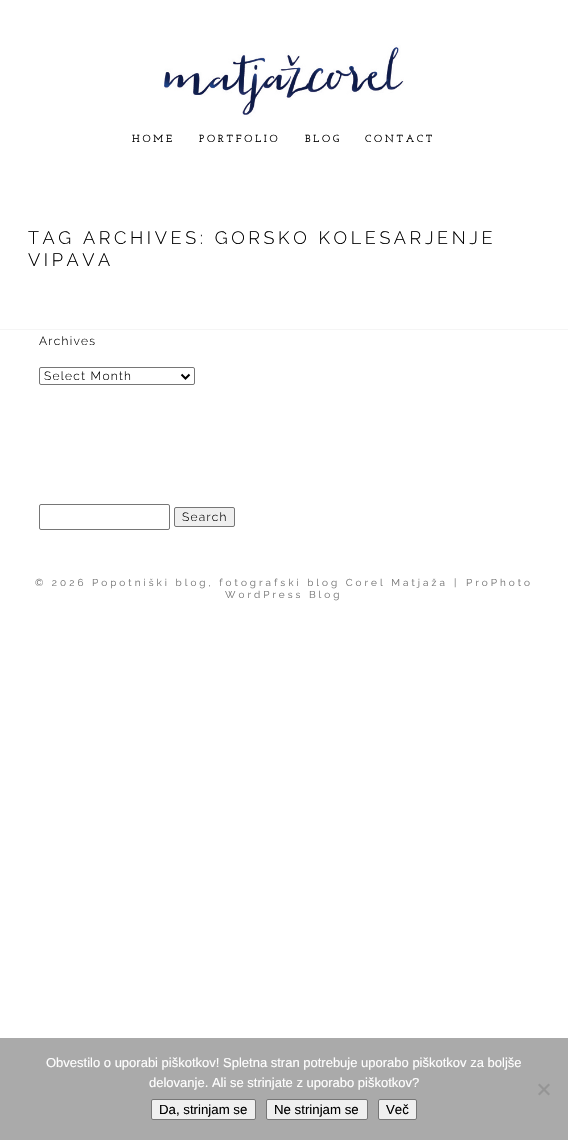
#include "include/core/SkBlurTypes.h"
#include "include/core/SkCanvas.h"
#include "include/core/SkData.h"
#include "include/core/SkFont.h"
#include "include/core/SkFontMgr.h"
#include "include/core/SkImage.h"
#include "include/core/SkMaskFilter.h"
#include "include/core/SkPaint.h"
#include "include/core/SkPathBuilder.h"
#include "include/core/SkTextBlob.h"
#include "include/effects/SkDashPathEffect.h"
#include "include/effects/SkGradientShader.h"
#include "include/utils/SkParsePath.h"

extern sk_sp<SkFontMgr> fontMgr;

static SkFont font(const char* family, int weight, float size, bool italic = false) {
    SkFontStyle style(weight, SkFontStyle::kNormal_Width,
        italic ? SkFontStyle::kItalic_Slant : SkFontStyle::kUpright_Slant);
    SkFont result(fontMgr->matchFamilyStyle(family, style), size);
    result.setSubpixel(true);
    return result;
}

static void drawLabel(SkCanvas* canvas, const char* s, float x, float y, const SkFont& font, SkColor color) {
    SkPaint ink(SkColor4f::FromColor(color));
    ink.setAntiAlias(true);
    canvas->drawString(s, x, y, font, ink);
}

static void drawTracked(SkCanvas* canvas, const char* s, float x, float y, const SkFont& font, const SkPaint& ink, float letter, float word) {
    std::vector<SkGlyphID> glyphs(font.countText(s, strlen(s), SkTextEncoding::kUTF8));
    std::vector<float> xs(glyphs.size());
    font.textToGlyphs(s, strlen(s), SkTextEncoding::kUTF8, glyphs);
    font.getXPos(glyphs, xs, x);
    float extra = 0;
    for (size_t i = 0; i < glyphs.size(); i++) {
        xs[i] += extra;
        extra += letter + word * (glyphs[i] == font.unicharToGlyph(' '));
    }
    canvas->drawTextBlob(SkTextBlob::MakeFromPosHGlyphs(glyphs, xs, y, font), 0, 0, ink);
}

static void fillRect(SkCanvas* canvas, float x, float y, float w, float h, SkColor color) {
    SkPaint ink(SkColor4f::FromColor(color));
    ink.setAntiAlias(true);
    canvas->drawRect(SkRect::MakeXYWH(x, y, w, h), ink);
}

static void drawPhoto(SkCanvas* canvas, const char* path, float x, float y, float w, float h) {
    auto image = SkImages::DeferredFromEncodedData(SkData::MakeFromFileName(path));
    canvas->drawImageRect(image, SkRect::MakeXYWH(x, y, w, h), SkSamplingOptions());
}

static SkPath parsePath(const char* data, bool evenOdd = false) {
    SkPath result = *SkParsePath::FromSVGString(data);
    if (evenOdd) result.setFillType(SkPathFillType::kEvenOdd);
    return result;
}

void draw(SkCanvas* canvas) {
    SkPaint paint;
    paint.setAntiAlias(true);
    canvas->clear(0xFFFFFFFF);
    drawPhoto(canvas, "assets/img1.png", 164, 45, 240, 72);
    SkFont font1 = font("Josefin Slab", 700, 10);
    paint.setColor(0xFF000000);
    drawTracked(canvas, "HOME", 132, 142, font1, paint, 3, 0);
    drawTracked(canvas, "PORTFOLIO", 199, 142, font1, paint, 3, 0);
    drawTracked(canvas, "BLOG", 305, 142, font1, paint, 3, 0);
    drawTracked(canvas, "CONTACT", 365, 142, font1, paint, 3, 0);
    SkFont font2 = font("Raleway", 300, 18);
    drawTracked(canvas, "TAG ARCHIVES: GORSKO KOLESARJENJE", 28, 244, font2, paint, 3.6f, 0);
    drawTracked(canvas, "VIPAVA", 28, 266, font2, paint, 3.6f, 0);
    fillRect(canvas, 0, 329, 568, 1, 0xFFF5F5F5);
    SkFont font3 = font("Raleway", 300, 12);
    drawTracked(canvas, "Archives", 39, 345, font3, paint, 1.25f, 0);
    paint.setStroke(true);
    paint.setStrokeWidth(1);
    paint.setColor(0xFF767676);
    canvas->drawRoundRect(SkRect::MakeXYWH(39.5f, 367.5f, 155, 17), 1.5f, 1.5f, paint);
    paint.setStrokeWidth(2);
    paint.setColor(0xFF000000);
    canvas->drawPath(parsePath("M181.5 374.5L185.5 378.5L189.5 374.5"), paint);
    paint.setStroke(false);
    drawTracked(canvas, "Select Month", 44, 380, font3, paint, 1.25f, 0);
    paint.setStroke(true);
    paint.setStrokeWidth(1);
    paint.setColor(0xFF767676);
    canvas->drawRoundRect(SkRect::MakeXYWH(39.5f, 504.5f, 130, 25), 1.5f, 1.5f, paint);
    paint.setStroke(false);
    paint.setColor(0xFFEFEFEF);
    canvas->drawRoundRect(SkRect::MakeXYWH(174.5f, 507.5f, 60, 19), 1.5f, 1.5f, paint);
    paint.setStroke(true);
    paint.setColor(0xFF767676);
    canvas->drawRoundRect(SkRect::MakeXYWH(174.5f, 507.5f, 60, 19), 1.5f, 1.5f, paint);
    paint.setStroke(false);
    paint.setColor(0xFF000000);
    drawTracked(canvas, "Search", 182, 521, font3, paint, 1.25f, 0);
    SkFont font4 = font("Raleway", 100, 10);
    paint.setColor(0xFF787878);
    drawTracked(canvas, "© 2026 Popotniški blog, fotografski blog Corel Matjaža", 35, 586, font4, paint, 3, 0);
    drawTracked(canvas, "|", 454, 586, font4, paint, 3, 0);
    drawTracked(canvas, "ProPhoto", 466, 586, font4, paint, 3, 0);
    drawTracked(canvas, "WordPress Blog", 225, 598, font4, paint, 3, 0);
    fillRect(canvas, 0, 1038, 568, 102, 0xFFAAAAAA);
    SkFont font5 = font("Liberation Sans", 400, 13);
    drawLabel(canvas, "Obvestilo o uporabi piškotkov! Spletna stran potrebuje uporabo piškotkov za boljše", 46, 1067, font5, 0xFFFFFFFF);
    drawLabel(canvas, "delovanje. Ali se strinjate z uporabo piškotkov?", 149, 1087, font5, 0xFFFFFFFF);
    paint.setColor(0xFF959595);
    canvas->drawPath(parsePath("M548.5 1083.5L550 1085L539.5 1095.5L538 1094Z"), paint);
    canvas->drawPath(parsePath("M538 1085L539.5 1083.5L550 1094L548.5 1095.5Z"), paint);
    paint.setColor(0xFFEFEFEF);
    canvas->drawRoundRect(SkRect::MakeXYWH(151.5f, 1099.5f, 104, 20), 1.5f, 1.5f, paint);
    paint.setStroke(true);
    paint.setColor(0xFF767676);
    canvas->drawRoundRect(SkRect::MakeXYWH(151.5f, 1099.5f, 104, 20), 1.5f, 1.5f, paint);
    SkFont font6 = font("Liberation Sans", 400, 13.25f);
    drawLabel(canvas, "Da, strinjam se", 159, 1114, font6, 0xFF000000);
    paint.setStroke(false);
    paint.setColor(0xFFEFEFEF);
    canvas->drawRoundRect(SkRect::MakeXYWH(266.5f, 1099.5f, 101, 20), 1.5f, 1.5f, paint);
    paint.setStroke(true);
    paint.setColor(0xFF767676);
    canvas->drawRoundRect(SkRect::MakeXYWH(266.5f, 1099.5f, 101, 20), 1.5f, 1.5f, paint);
    drawLabel(canvas, "Ne strinjam se", 274, 1114, font6, 0xFF000000);
    paint.setStroke(false);
    paint.setColor(0xFFEFEFEF);
    canvas->drawRoundRect(SkRect::MakeXYWH(378.5f, 1099.5f, 38, 20), 1.5f, 1.5f, paint);
    paint.setStroke(true);
    paint.setColor(0xFF767676);
    canvas->drawRoundRect(SkRect::MakeXYWH(378.5f, 1099.5f, 38, 20), 1.5f, 1.5f, paint);
    drawLabel(canvas, "Več", 386, 1114, font6, 0xFF000000);
}
